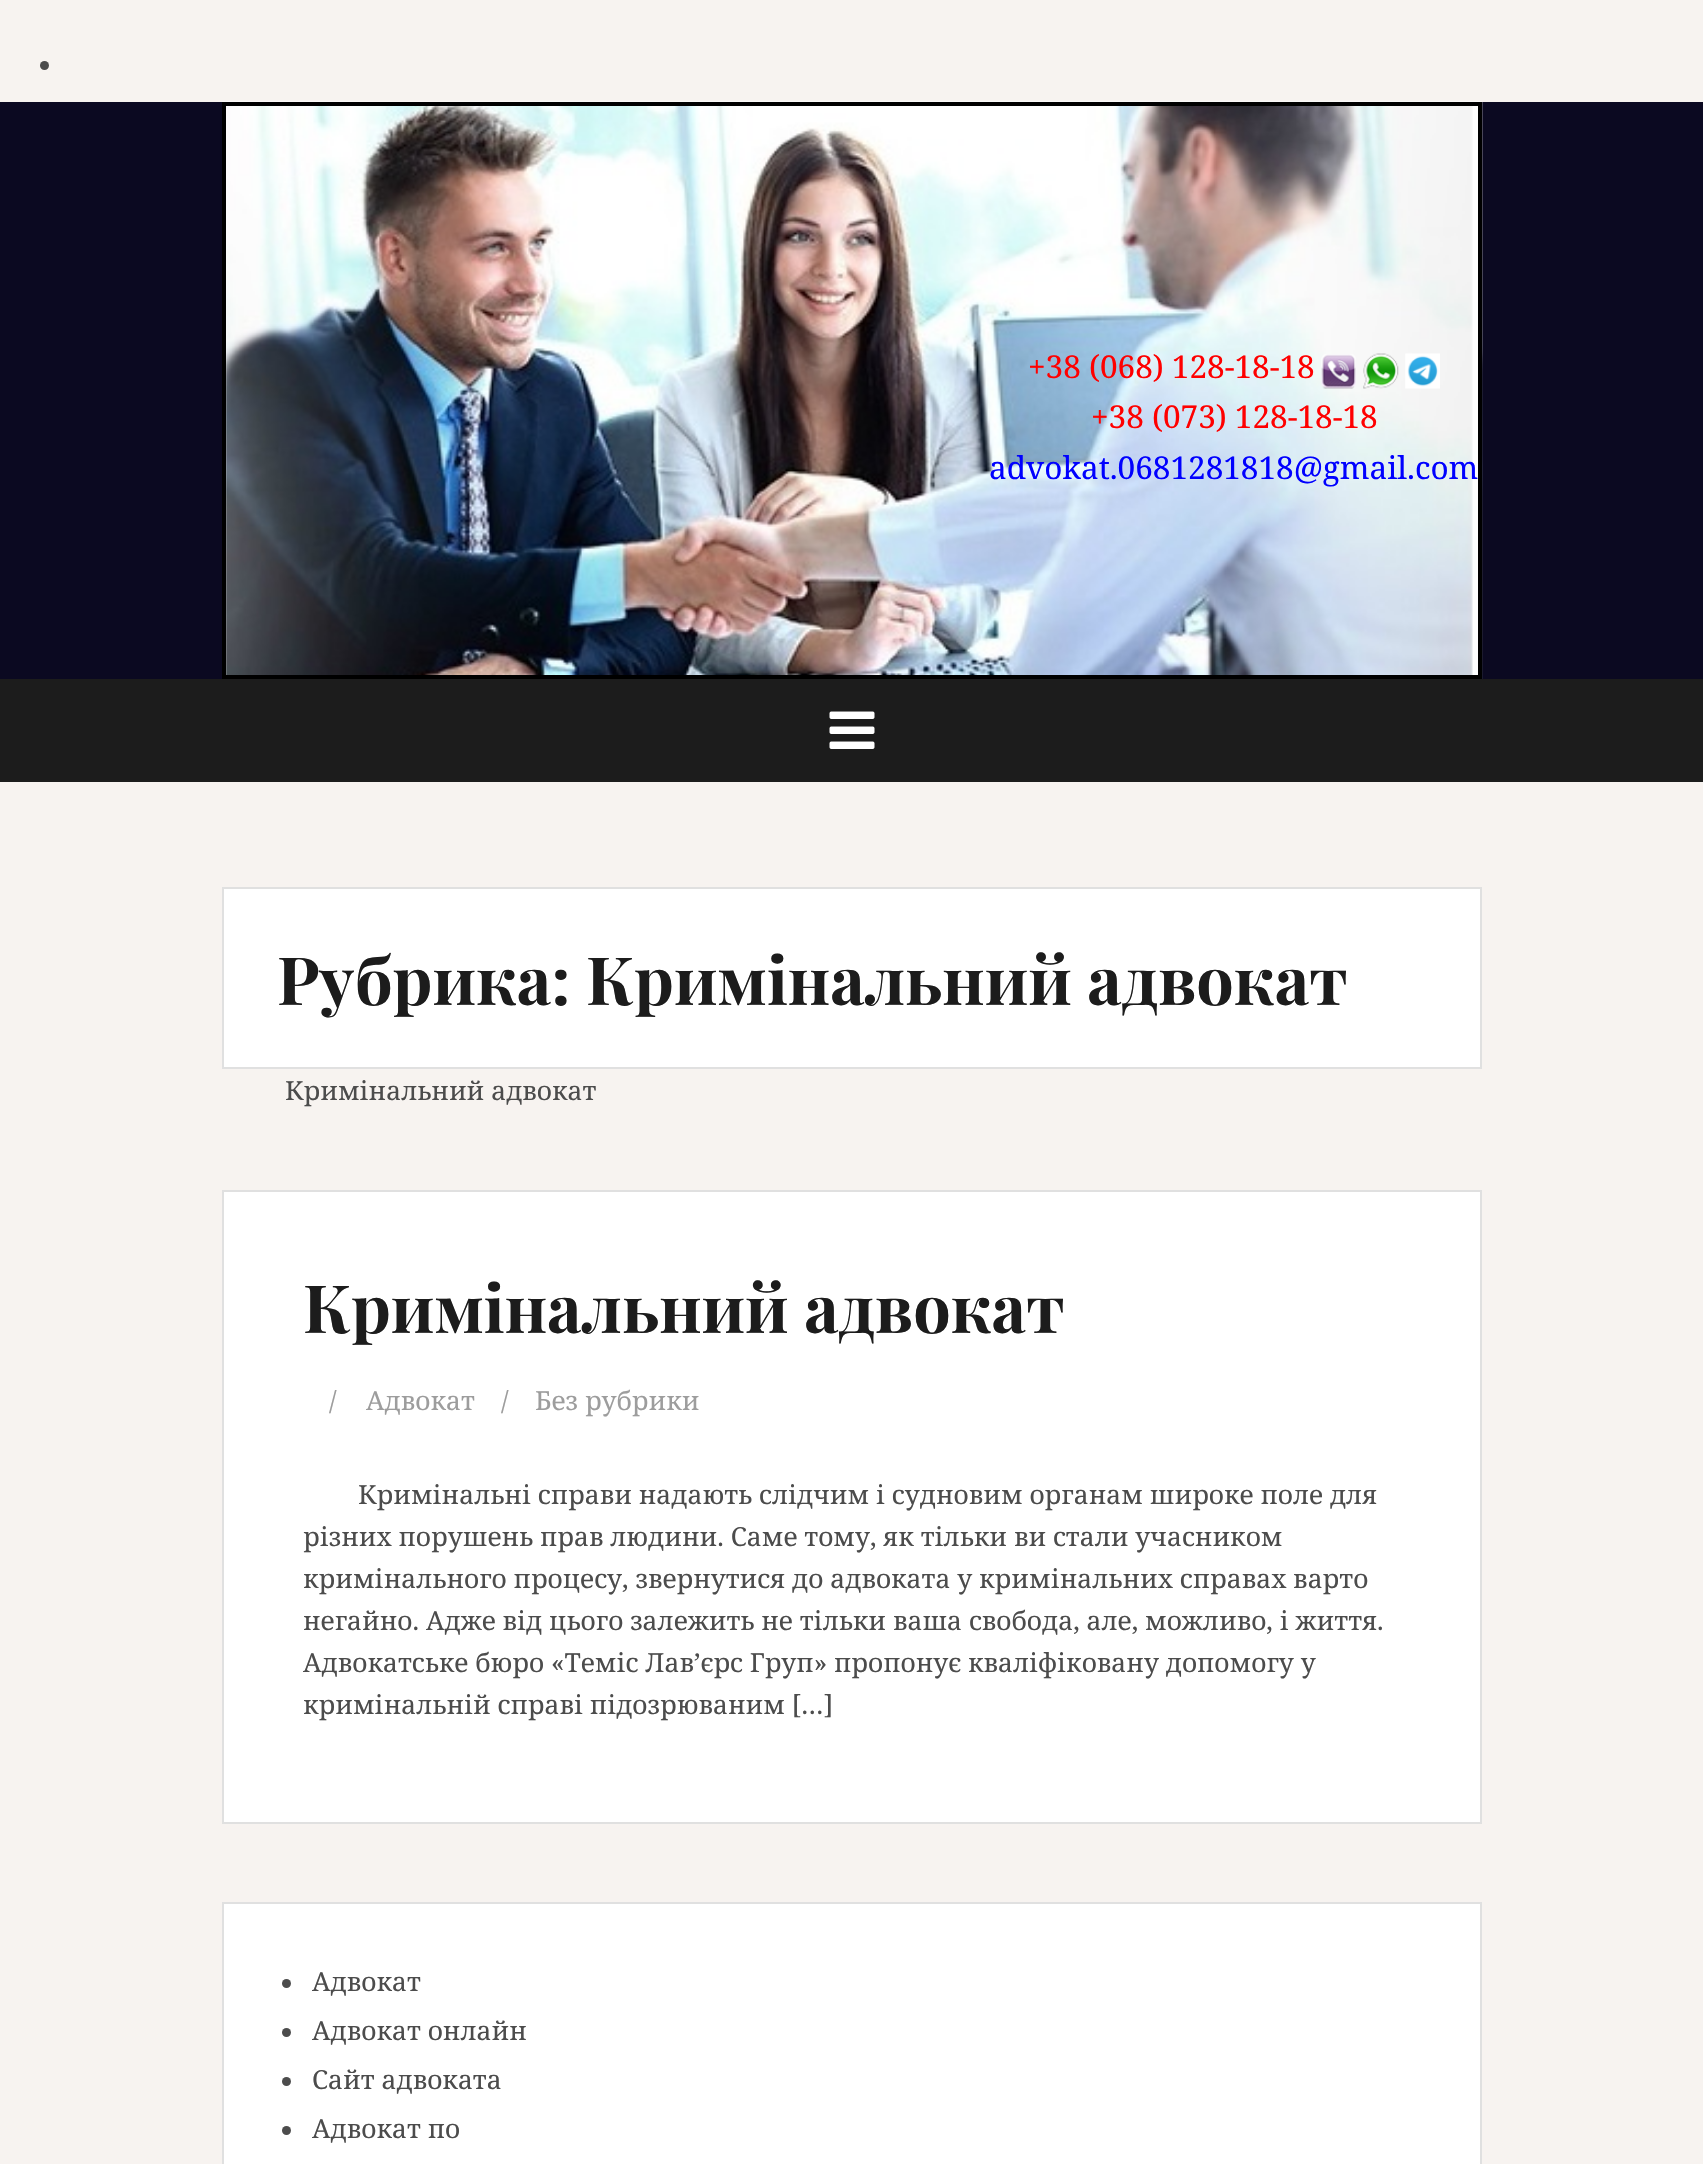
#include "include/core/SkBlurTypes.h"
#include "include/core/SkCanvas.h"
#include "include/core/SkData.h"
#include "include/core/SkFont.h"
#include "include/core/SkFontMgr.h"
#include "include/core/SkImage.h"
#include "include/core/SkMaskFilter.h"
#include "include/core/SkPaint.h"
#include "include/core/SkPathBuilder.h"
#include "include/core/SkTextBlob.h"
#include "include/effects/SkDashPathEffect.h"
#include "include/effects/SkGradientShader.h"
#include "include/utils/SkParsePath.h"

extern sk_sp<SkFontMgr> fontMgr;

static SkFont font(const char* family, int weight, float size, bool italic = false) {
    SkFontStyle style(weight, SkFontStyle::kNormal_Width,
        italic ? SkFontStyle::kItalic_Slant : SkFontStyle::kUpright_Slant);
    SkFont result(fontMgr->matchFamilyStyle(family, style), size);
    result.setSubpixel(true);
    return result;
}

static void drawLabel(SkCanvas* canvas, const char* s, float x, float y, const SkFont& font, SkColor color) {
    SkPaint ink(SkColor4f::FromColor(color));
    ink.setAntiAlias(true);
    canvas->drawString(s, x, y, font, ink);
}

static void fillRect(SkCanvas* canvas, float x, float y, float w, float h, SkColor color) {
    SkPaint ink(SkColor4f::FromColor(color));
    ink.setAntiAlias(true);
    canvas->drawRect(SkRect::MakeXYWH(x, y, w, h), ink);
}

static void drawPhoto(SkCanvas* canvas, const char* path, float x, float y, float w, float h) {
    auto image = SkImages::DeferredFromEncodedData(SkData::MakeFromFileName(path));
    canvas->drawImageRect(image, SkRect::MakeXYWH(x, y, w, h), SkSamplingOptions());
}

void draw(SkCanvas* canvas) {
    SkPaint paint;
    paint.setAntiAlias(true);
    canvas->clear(0xFFF7F3F0);
    paint.setColor(0xFF4C4C4C);
    canvas->drawCircle(44.5f, 65.5f, 4.5f, paint);
    fillRect(canvas, 0, 102, 1703, 577, 0xFF0B0921);
    drawPhoto(canvas, "assets/img1.png", 222, 101, 1261, 578);
    paint.setStroke(true);
    paint.setStrokeWidth(4);
    paint.setColor(0xFF000000);
    canvas->drawRect(SkRect::MakeXYWH(224, 104, 1256, 573), paint);
    SkFont font1 = font("Noto Serif", 400, 31.5f);
    drawLabel(canvas, "+38 (068) 128-18-18", 1028, 378, font1, 0xFFFF0000);
    drawPhoto(canvas, "assets/img2.png", 1321, 354, 35, 35);
    drawPhoto(canvas, "assets/img3.png", 1363, 353, 36, 36);
    drawPhoto(canvas, "assets/img4.png", 1405, 353, 35, 36);
    drawLabel(canvas, "+38 (073) 128-18-18", 1091, 428, font1, 0xFFFF0000);
    drawLabel(canvas, "advokat.0681281818@gmail.com", 989, 479, font1, 0xFF0000FF);
    fillRect(canvas, 0, 679, 1703, 103, 0xFF1C1C1C);
    drawPhoto(canvas, "assets/img5.png", 829, 711, 46, 38);
    paint.setStroke(false);
    paint.setColor(0xFFFFFFFF);
    canvas->drawRect(SkRect::MakeXYWH(223, 888, 1258, 180), paint);
    paint.setStroke(true);
    paint.setStrokeWidth(2);
    paint.setColor(0xFFE0E0E0);
    canvas->drawRect(SkRect::MakeXYWH(223, 888, 1258, 180), paint);
    SkFont font2 = font("Playfair Display", 700, 66.5f);
    drawLabel(canvas, "Рубрика: Кримінальний адвокат", 277, 1005, font2, 0xFF1C1C1C);
    SkFont font3 = font("Noto Serif", 400, 26.25f);
    drawLabel(canvas, "Кримінальний адвокат", 285, 1100, font3, 0xFF4C4C4C);
    paint.setStroke(false);
    paint.setColor(0xFFFFFFFF);
    canvas->drawRect(SkRect::MakeXYWH(223, 1191, 1258, 632), paint);
    paint.setStroke(true);
    paint.setColor(0xFFE0E0E0);
    canvas->drawRect(SkRect::MakeXYWH(223, 1191, 1258, 632), paint);
    drawLabel(canvas, "Кримінальний адвокат", 303, 1333, font2, 0xFF1C1C1C);
    drawLabel(canvas, "/", 329, 1410, font3, 0xFF9D9D9D);
    drawLabel(canvas, "Адвокат", 366, 1410, font3, 0xFF9D9D9D);
    drawLabel(canvas, "/", 501, 1410, font3, 0xFF9D9D9D);
    drawLabel(canvas, "Без рубрики", 535, 1410, font3, 0xFF9D9D9D);
    drawLabel(canvas, "Кримінальні справи надають слідчим і судновим органам широке поле для", 358, 1504, font3, 0xFF4C4C4C);
    drawLabel(canvas, "різних порушень прав людини. Саме тому, як тільки ви стали учасником", 303, 1546, font3, 0xFF4C4C4C);
    drawLabel(canvas, "кримінального процесу, звернутися до адвоката у кримінальних справах варто", 303, 1588, font3, 0xFF4C4C4C);
    drawLabel(canvas, "негайно. Адже від цього залежить не тільки ваша свобода, але, можливо, і життя.", 303, 1630, font3, 0xFF4C4C4C);
    drawLabel(canvas, "Адвокатське бюро «Теміс Лав’єрс Груп» пропонує кваліфіковану допомогу у", 303, 1672, font3, 0xFF4C4C4C);
    drawLabel(canvas, "кримінальній справі підозрюваним […]", 303, 1714, font3, 0xFF4C4C4C);
    paint.setStroke(false);
    paint.setColor(0xFFFFFFFF);
    canvas->drawRect(SkRect::MakeXYWH(223, 1903, 1258, 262), paint);
    paint.setStroke(true);
    paint.setColor(0xFFE0E0E0);
    canvas->drawRect(SkRect::MakeXYWH(223, 1903, 1258, 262), paint);
    paint.setStroke(false);
    paint.setColor(0xFF4C4C4C);
    canvas->drawCircle(286.5f, 1983.5f, 4.5f, paint);
    drawLabel(canvas, "Адвокат", 312, 1991, font3, 0xFF4C4C4C);
    canvas->drawCircle(286.5f, 2032.5f, 4.5f, paint);
    drawLabel(canvas, "Адвокат онлайн", 312, 2040, font3, 0xFF4C4C4C);
    canvas->drawCircle(286.5f, 2081.5f, 4.5f, paint);
    drawLabel(canvas, "Сайт адвоката", 312, 2089, font3, 0xFF4C4C4C);
    canvas->drawCircle(286.5f, 2130.5f, 4.5f, paint);
    drawLabel(canvas, "Адвокат по", 312, 2138, font3, 0xFF4C4C4C);
}
